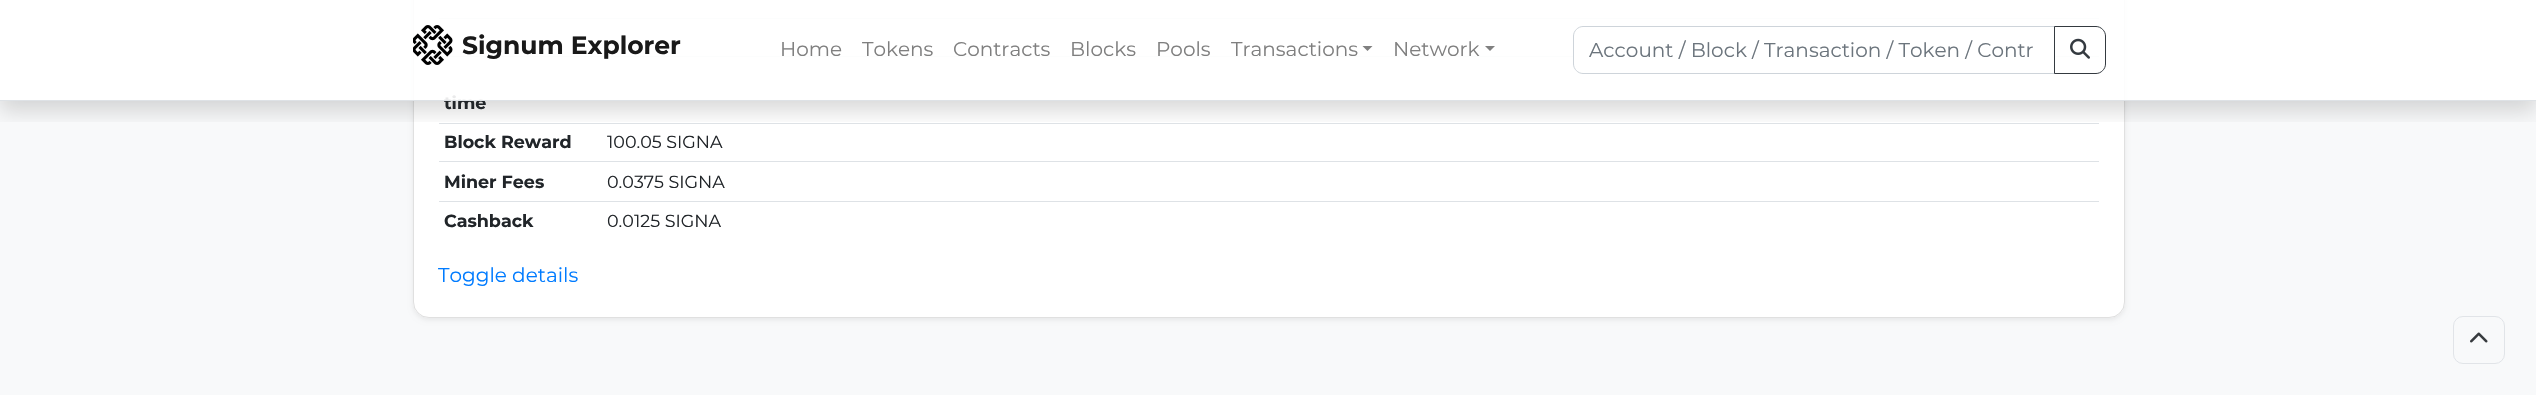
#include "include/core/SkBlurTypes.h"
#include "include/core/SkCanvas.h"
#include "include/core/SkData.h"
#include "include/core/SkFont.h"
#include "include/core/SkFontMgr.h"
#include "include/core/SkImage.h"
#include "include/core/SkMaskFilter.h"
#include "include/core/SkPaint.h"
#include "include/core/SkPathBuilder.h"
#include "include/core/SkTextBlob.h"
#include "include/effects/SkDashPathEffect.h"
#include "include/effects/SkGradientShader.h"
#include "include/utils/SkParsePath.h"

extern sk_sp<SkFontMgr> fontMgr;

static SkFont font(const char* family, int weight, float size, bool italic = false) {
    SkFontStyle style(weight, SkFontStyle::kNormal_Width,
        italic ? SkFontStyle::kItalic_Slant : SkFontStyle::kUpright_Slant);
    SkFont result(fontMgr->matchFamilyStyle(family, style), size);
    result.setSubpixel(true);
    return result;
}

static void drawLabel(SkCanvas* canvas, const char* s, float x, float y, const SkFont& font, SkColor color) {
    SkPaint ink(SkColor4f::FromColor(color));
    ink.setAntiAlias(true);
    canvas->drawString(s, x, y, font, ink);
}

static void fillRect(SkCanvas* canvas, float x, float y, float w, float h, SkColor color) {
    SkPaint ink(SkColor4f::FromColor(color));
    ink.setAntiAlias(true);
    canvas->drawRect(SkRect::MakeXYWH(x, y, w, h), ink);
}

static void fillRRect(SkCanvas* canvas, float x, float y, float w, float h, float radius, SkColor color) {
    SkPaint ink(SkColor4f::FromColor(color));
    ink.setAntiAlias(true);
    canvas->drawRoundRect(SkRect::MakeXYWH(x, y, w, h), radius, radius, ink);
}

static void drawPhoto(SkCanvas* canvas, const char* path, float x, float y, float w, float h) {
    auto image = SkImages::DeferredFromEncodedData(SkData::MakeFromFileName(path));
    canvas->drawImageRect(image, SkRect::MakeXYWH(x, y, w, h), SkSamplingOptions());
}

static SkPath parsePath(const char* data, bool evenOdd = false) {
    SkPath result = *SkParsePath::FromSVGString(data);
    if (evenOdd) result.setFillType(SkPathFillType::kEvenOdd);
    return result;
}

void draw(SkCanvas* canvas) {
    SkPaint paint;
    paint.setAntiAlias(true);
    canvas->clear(0xFFF8F9FA);
    paint.setColor(0x12000000);
    paint.setMaskFilter(SkMaskFilter::MakeBlur(kNormal_SkBlurStyle, 2.5f));
    canvas->drawRoundRect(SkRect::MakeXYWH(413, -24, 1712, 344), 16, 16, paint);
    paint.setMaskFilter(nullptr);
    fillRRect(canvas, 413, -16, 1712, 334, 16, 0xFFFFFFFF);
    paint.setStroke(true);
    paint.setStrokeWidth(1);
    paint.setColor(0x1F000000);
    canvas->drawRoundRect(SkRect::MakeXYWH(413.5f, -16.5f, 1711, 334), 15.5f, 15.5f, paint);
    fillRect(canvas, 439, 18, 1660, 1, 0xFFDEE2E6);
    fillRect(canvas, 439, 56, 1660, 1, 0xFFDEE2E6);
    fillRect(canvas, 439, 123, 1660, 1, 0xFFDEE2E6);
    canvas->save();
    canvas->clipRect(SkRect::MakeXYWH(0, 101, 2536, 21));
    paint.setStroke(false);
    paint.setColor(0x26000000);
    paint.setMaskFilter(SkMaskFilter::MakeBlur(kNormal_SkBlurStyle, 10));
    canvas->drawRect(SkRect::MakeXYWH(0, 10, 2536, 101), paint);
    paint.setMaskFilter(nullptr);
    canvas->restore();
    SkFont font1 = font("Montserrat", 700, 17.5f);
    drawLabel(canvas, "time", 444, 109, font1, 0xFF212529);
    fillRect(canvas, 0, 0, 2536, 100, 0xE6FFFFFF);
    fillRect(canvas, 0, 100, 2536, 1, 0xFFDEE2E6);
    drawPhoto(canvas, "assets/img1.png", 413, 25, 40, 40);
    SkFont font2 = font("Montserrat", 700, 25);
    drawLabel(canvas, "Signum Explorer", 462, 54, font2, 0xFF191919);
    SkFont font3 = font("Montserrat", 400, 20);
    drawLabel(canvas, "Home", 780, 56, font3, 0xFF7F7F7F);
    drawLabel(canvas, "Tokens", 862, 56, font3, 0xFF7F7F7F);
    drawLabel(canvas, "Contracts", 953, 56, font3, 0xFF7F7F7F);
    drawLabel(canvas, "Blocks", 1070, 56, font3, 0xFF7F7F7F);
    drawLabel(canvas, "Pools", 1156, 56, font3, 0xFF7F7F7F);
    drawLabel(canvas, "Transactions", 1231, 56, font3, 0xFF7F7F7F);
    paint.setColor(0xFF808080);
    canvas->drawPath(parsePath("M1362.5 46H1372.5L1367.5 51Z"), paint);
    drawLabel(canvas, "Network", 1393, 56, font3, 0xFF7F7F7F);
    canvas->drawPath(parsePath("M1485 46H1495L1490 51Z"), paint);
    paint.setColor(0xFFFFFFFF);
    canvas->drawPath(parsePath("M1583 28H2054V73H1583C1578 73 1574 69 1574 64V37C1574 32 1578 28 1583 28Z"), paint);
    paint.setStroke(true);
    paint.setColor(0xFFCED4DA);
    canvas->drawPath(parsePath("M1583 26.5H2054.5V73.5H1583C1578 73.5 1573.5 69 1573.5 64V36C1573.5 31 1578 26.5 1583 26.5Z"), paint);
    drawLabel(canvas, "Account / Block / Transaction / Token / Contr", 1589, 57, font3, 0xFF6C757D);
    paint.setColor(0xFF343A40);
    canvas->drawPath(parsePath("M2054.5 26.5H2096C2101 26.5 2105.5 31 2105.5 36V64C2105.5 69 2101 73.5 2096 73.5H2054.5Z"), paint);
    drawPhoto(canvas, "assets/img2.png", 2070, 38, 20, 21);
    drawLabel(canvas, "Block Reward", 444, 148, font1, 0xFF212529);
    SkFont font4 = font("Montserrat", 400, 17.5f);
    drawLabel(canvas, "100.05 SIGNA", 607, 148, font4, 0xFF212529);
    drawLabel(canvas, "Miner Fees", 444, 188, font1, 0xFF212529);
    fillRect(canvas, 439, 161, 1660, 1, 0xFFDEE2E6);
    drawLabel(canvas, "0.0375 SIGNA", 607, 188, font4, 0xFF212529);
    drawLabel(canvas, "Cashback", 444, 227, font1, 0xFF212529);
    fillRect(canvas, 439, 201, 1660, 1, 0xFFDEE2E6);
    drawLabel(canvas, "0.0125 SIGNA", 607, 227, font4, 0xFF212529);
    drawLabel(canvas, "Toggle details", 438, 282, font3, 0xFF007BFF);
    paint.setColor(0xFFE1E4E8);
    canvas->drawRoundRect(SkRect::MakeXYWH(2453.5f, 316.5f, 51, 47), 9.5f, 9.5f, paint);
    drawPhoto(canvas, "assets/img3.png", 2470, 332, 18, 11);
}
